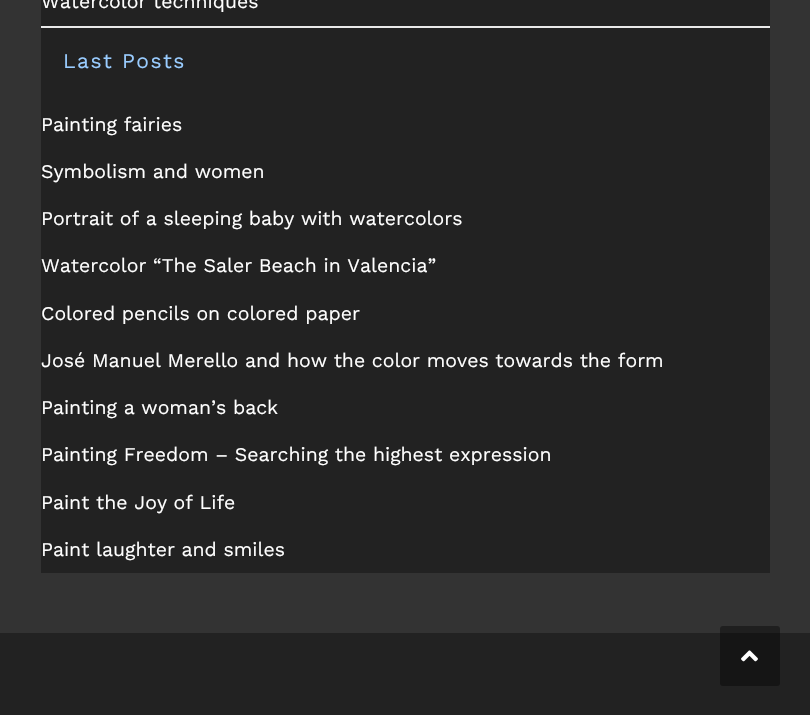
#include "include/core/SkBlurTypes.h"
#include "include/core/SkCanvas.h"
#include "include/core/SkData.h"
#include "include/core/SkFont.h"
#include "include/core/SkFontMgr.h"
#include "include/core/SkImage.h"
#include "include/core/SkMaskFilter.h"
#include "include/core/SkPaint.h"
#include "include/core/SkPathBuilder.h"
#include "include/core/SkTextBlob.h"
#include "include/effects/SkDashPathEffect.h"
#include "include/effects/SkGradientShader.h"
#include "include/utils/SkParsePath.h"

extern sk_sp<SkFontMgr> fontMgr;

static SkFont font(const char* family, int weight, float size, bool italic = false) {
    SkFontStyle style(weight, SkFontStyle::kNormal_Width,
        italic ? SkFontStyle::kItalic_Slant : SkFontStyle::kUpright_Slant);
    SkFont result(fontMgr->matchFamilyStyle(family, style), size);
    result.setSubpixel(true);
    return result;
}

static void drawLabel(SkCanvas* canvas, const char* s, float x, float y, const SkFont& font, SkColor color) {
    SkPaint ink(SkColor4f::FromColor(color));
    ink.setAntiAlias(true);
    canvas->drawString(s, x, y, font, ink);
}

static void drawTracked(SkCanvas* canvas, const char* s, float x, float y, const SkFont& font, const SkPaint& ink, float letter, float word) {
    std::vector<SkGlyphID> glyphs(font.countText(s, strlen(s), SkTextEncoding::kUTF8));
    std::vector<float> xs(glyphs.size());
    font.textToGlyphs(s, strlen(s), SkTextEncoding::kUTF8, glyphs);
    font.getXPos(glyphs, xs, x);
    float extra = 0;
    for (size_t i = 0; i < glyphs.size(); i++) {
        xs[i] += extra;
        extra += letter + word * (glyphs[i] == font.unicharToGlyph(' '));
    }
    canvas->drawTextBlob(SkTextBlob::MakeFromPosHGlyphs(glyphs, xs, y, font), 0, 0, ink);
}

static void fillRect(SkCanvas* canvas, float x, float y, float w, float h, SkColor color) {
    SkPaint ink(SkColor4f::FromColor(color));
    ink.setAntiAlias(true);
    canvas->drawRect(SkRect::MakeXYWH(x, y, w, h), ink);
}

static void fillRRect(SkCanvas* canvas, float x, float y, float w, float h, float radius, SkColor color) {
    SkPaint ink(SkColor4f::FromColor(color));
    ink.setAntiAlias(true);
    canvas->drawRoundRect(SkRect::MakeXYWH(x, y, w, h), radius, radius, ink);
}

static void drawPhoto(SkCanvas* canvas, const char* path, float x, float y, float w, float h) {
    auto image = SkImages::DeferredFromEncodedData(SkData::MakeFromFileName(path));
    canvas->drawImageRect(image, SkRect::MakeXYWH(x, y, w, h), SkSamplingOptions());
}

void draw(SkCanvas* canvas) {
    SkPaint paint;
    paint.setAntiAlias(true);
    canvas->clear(0xFF333333);
    fillRect(canvas, 41, 0, 729, 573, 0xFF222222);
    fillRect(canvas, 41, 26, 729, 2, 0xFFE9E9E9);
    SkFont font1 = font("Work Sans", 400, 19.5f);
    drawLabel(canvas, "Watercolor techniques", 41, 8, font1, 0xFFFFFFFF);
    SkFont font2 = font("Work Sans", 400, 21);
    paint.setColor(0xFF99CCFF);
    drawTracked(canvas, "Last Posts", 63, 68, font2, paint, 1.5f, 0);
    drawLabel(canvas, "Painting fairies", 41, 131, font1, 0xFFFFFFFF);
    drawLabel(canvas, "Symbolism and women", 41, 178, font1, 0xFFFFFFFF);
    drawLabel(canvas, "Portrait of a sleeping baby with watercolors", 41, 225, font1, 0xFFFFFFFF);
    drawLabel(canvas, "Watercolor “The Saler Beach in Valencia”", 41, 272, font1, 0xFFFFFFFF);
    drawLabel(canvas, "Colored pencils on colored paper", 41, 320, font1, 0xFFFFFFFF);
    drawLabel(canvas, "José Manuel Merello and how the color moves towards the form", 41, 367, font1, 0xFFFFFFFF);
    drawLabel(canvas, "Painting a woman’s back", 41, 414, font1, 0xFFFFFFFF);
    drawLabel(canvas, "Painting Freedom – Searching the highest expression", 41, 461, font1, 0xFFFFFFFF);
    drawLabel(canvas, "Paint the Joy of Life", 41, 509, font1, 0xFFFFFFFF);
    drawLabel(canvas, "Paint laughter and smiles", 41, 556, font1, 0xFFFFFFFF);
    fillRect(canvas, 0, 633, 810, 82, 0xFF222222);
    fillRRect(canvas, 720, 626, 60, 60, 3, 0x66000000);
    drawPhoto(canvas, "assets/img1.png", 741, 650, 17, 12);
}
